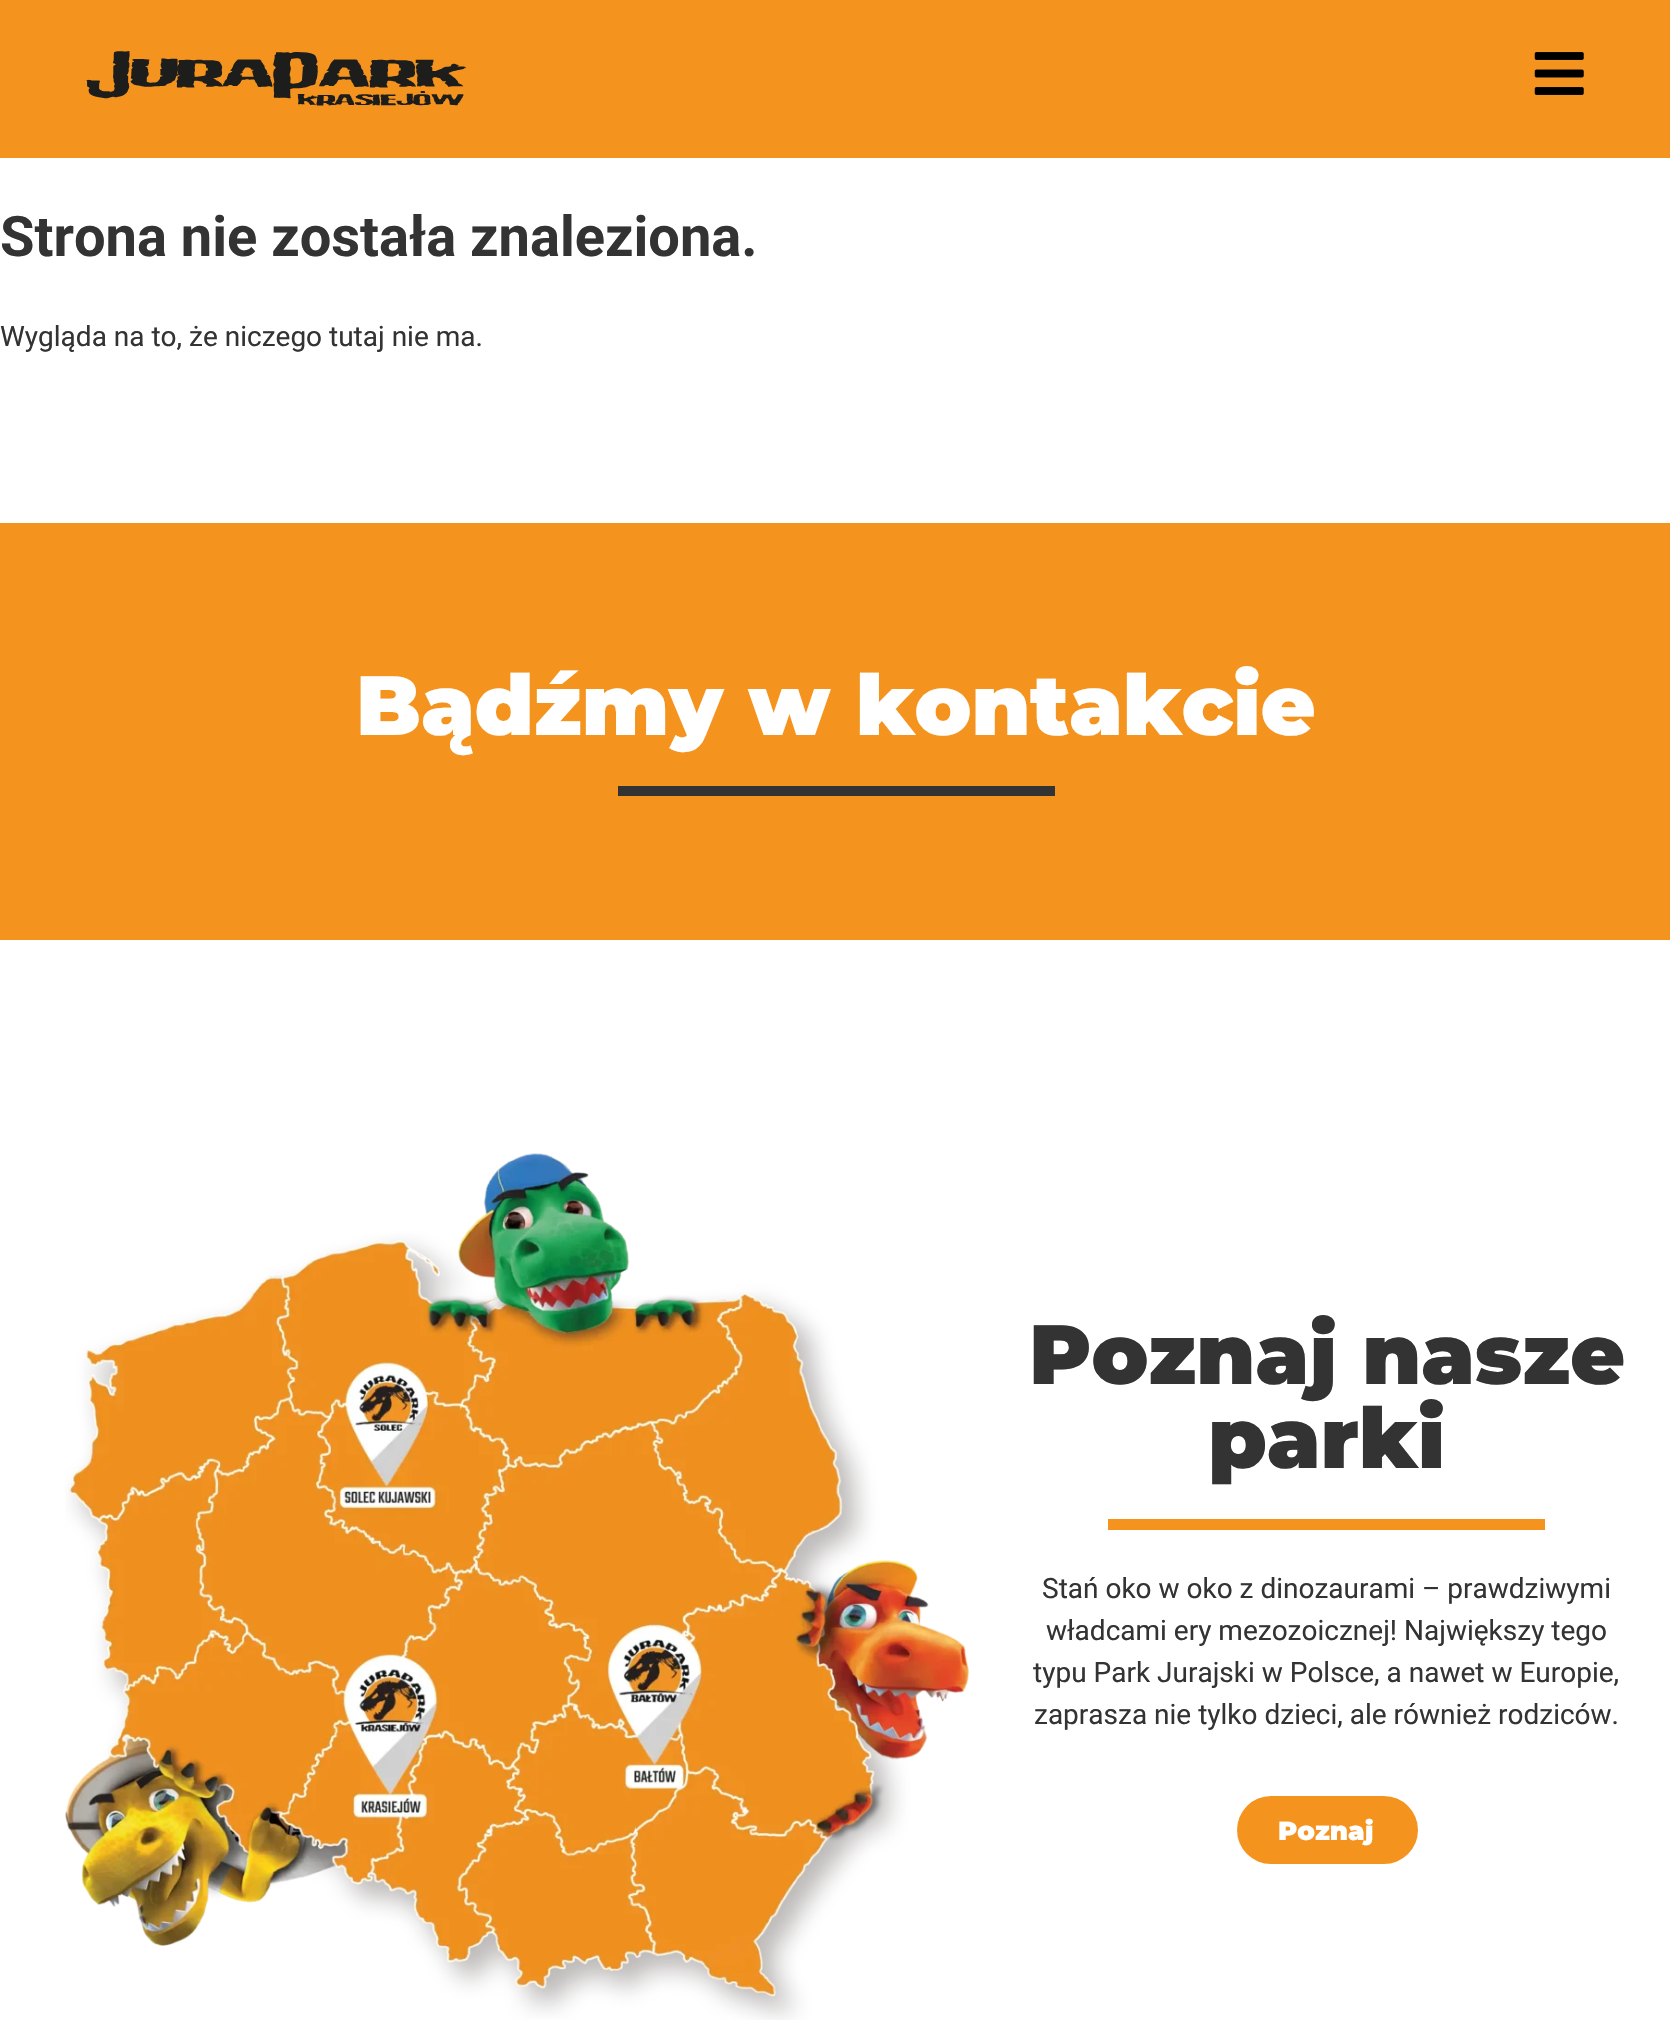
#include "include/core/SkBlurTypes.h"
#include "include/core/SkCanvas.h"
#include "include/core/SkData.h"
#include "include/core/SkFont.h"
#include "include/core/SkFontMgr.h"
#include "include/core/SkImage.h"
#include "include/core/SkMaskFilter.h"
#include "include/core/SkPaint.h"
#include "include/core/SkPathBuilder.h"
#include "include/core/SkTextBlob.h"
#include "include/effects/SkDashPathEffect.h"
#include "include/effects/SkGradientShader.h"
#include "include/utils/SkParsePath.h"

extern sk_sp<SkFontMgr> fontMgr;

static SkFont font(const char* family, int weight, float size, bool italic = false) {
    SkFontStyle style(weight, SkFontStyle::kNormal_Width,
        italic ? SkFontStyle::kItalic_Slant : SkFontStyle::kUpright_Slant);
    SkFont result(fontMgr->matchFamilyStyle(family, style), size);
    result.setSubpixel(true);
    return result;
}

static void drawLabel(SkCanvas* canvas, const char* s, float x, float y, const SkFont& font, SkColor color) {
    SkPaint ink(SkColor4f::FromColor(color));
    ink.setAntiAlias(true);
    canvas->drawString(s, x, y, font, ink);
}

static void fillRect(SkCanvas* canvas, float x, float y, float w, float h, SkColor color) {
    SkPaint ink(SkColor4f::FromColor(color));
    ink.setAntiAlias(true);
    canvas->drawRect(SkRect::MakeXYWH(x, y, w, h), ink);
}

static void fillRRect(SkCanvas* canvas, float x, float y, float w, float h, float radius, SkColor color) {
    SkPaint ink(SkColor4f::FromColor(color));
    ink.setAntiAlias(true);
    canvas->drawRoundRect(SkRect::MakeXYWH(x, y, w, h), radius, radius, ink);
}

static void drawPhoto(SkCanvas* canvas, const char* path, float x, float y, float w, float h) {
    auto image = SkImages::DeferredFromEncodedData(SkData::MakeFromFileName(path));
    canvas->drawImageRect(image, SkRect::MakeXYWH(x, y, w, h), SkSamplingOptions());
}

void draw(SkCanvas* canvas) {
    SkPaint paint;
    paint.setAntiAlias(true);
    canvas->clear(0xFFFFFFFF);
    fillRect(canvas, 0, 0, 1670, 158, 0xFFF4941F);
    drawPhoto(canvas, "assets/img1.png", 86, 51, 380, 55);
    drawPhoto(canvas, "assets/img2.png", 1534, 52, 50, 43);
    SkFont font1 = font("Roboto", 700, 56);
    drawLabel(canvas, "Strona nie została znaleziona.", 0, 256, font1, 0xFF333333);
    SkFont font2 = font("Roboto", 400, 28);
    drawLabel(canvas, "Wygląda na to, że niczego tutaj nie ma.", 0, 346, font2, 0xFF333333);
    fillRect(canvas, 0, 523, 1670, 417, 0xFFF4941F);
    SkFont font3 = font("Montserrat", 900, 84);
    drawLabel(canvas, "Bądźmy w kontakcie", 356, 735, font3, 0xFFFFFFFF);
    fillRect(canvas, 618, 786, 437, 10, 0xFF333333);
    drawPhoto(canvas, "assets/img3.png", 65, 1153, 905, 867);
    drawLabel(canvas, "Poznaj nasze", 1029, 1384, font3, 0xFF333333);
    drawLabel(canvas, "parki", 1208, 1468, font3, 0xFF333333);
    fillRect(canvas, 1108, 1519, 437, 11, 0xFFF4941F);
    drawLabel(canvas, "Stań oko w oko z dinozaurami – prawdziwymi", 1042, 1598, font2, 0xFF333333);
    drawLabel(canvas, "władcami ery mezozoicznej! Największy tego", 1046, 1640, font2, 0xFF333333);
    drawLabel(canvas, "typu Park Jurajski w Polsce, a nawet w Europie,", 1033, 1682, font2, 0xFF333333);
    drawLabel(canvas, "zaprasza nie tylko dzieci, ale również rodziców.", 1034, 1724, font2, 0xFF333333);
    fillRRect(canvas, 1237, 1796, 181, 68, 34, 0xFFF4941F);
    SkFont font4 = font("Montserrat", 900, 26);
    drawLabel(canvas, "Poznaj", 1278, 1840, font4, 0xFFFFFFFF);
}
